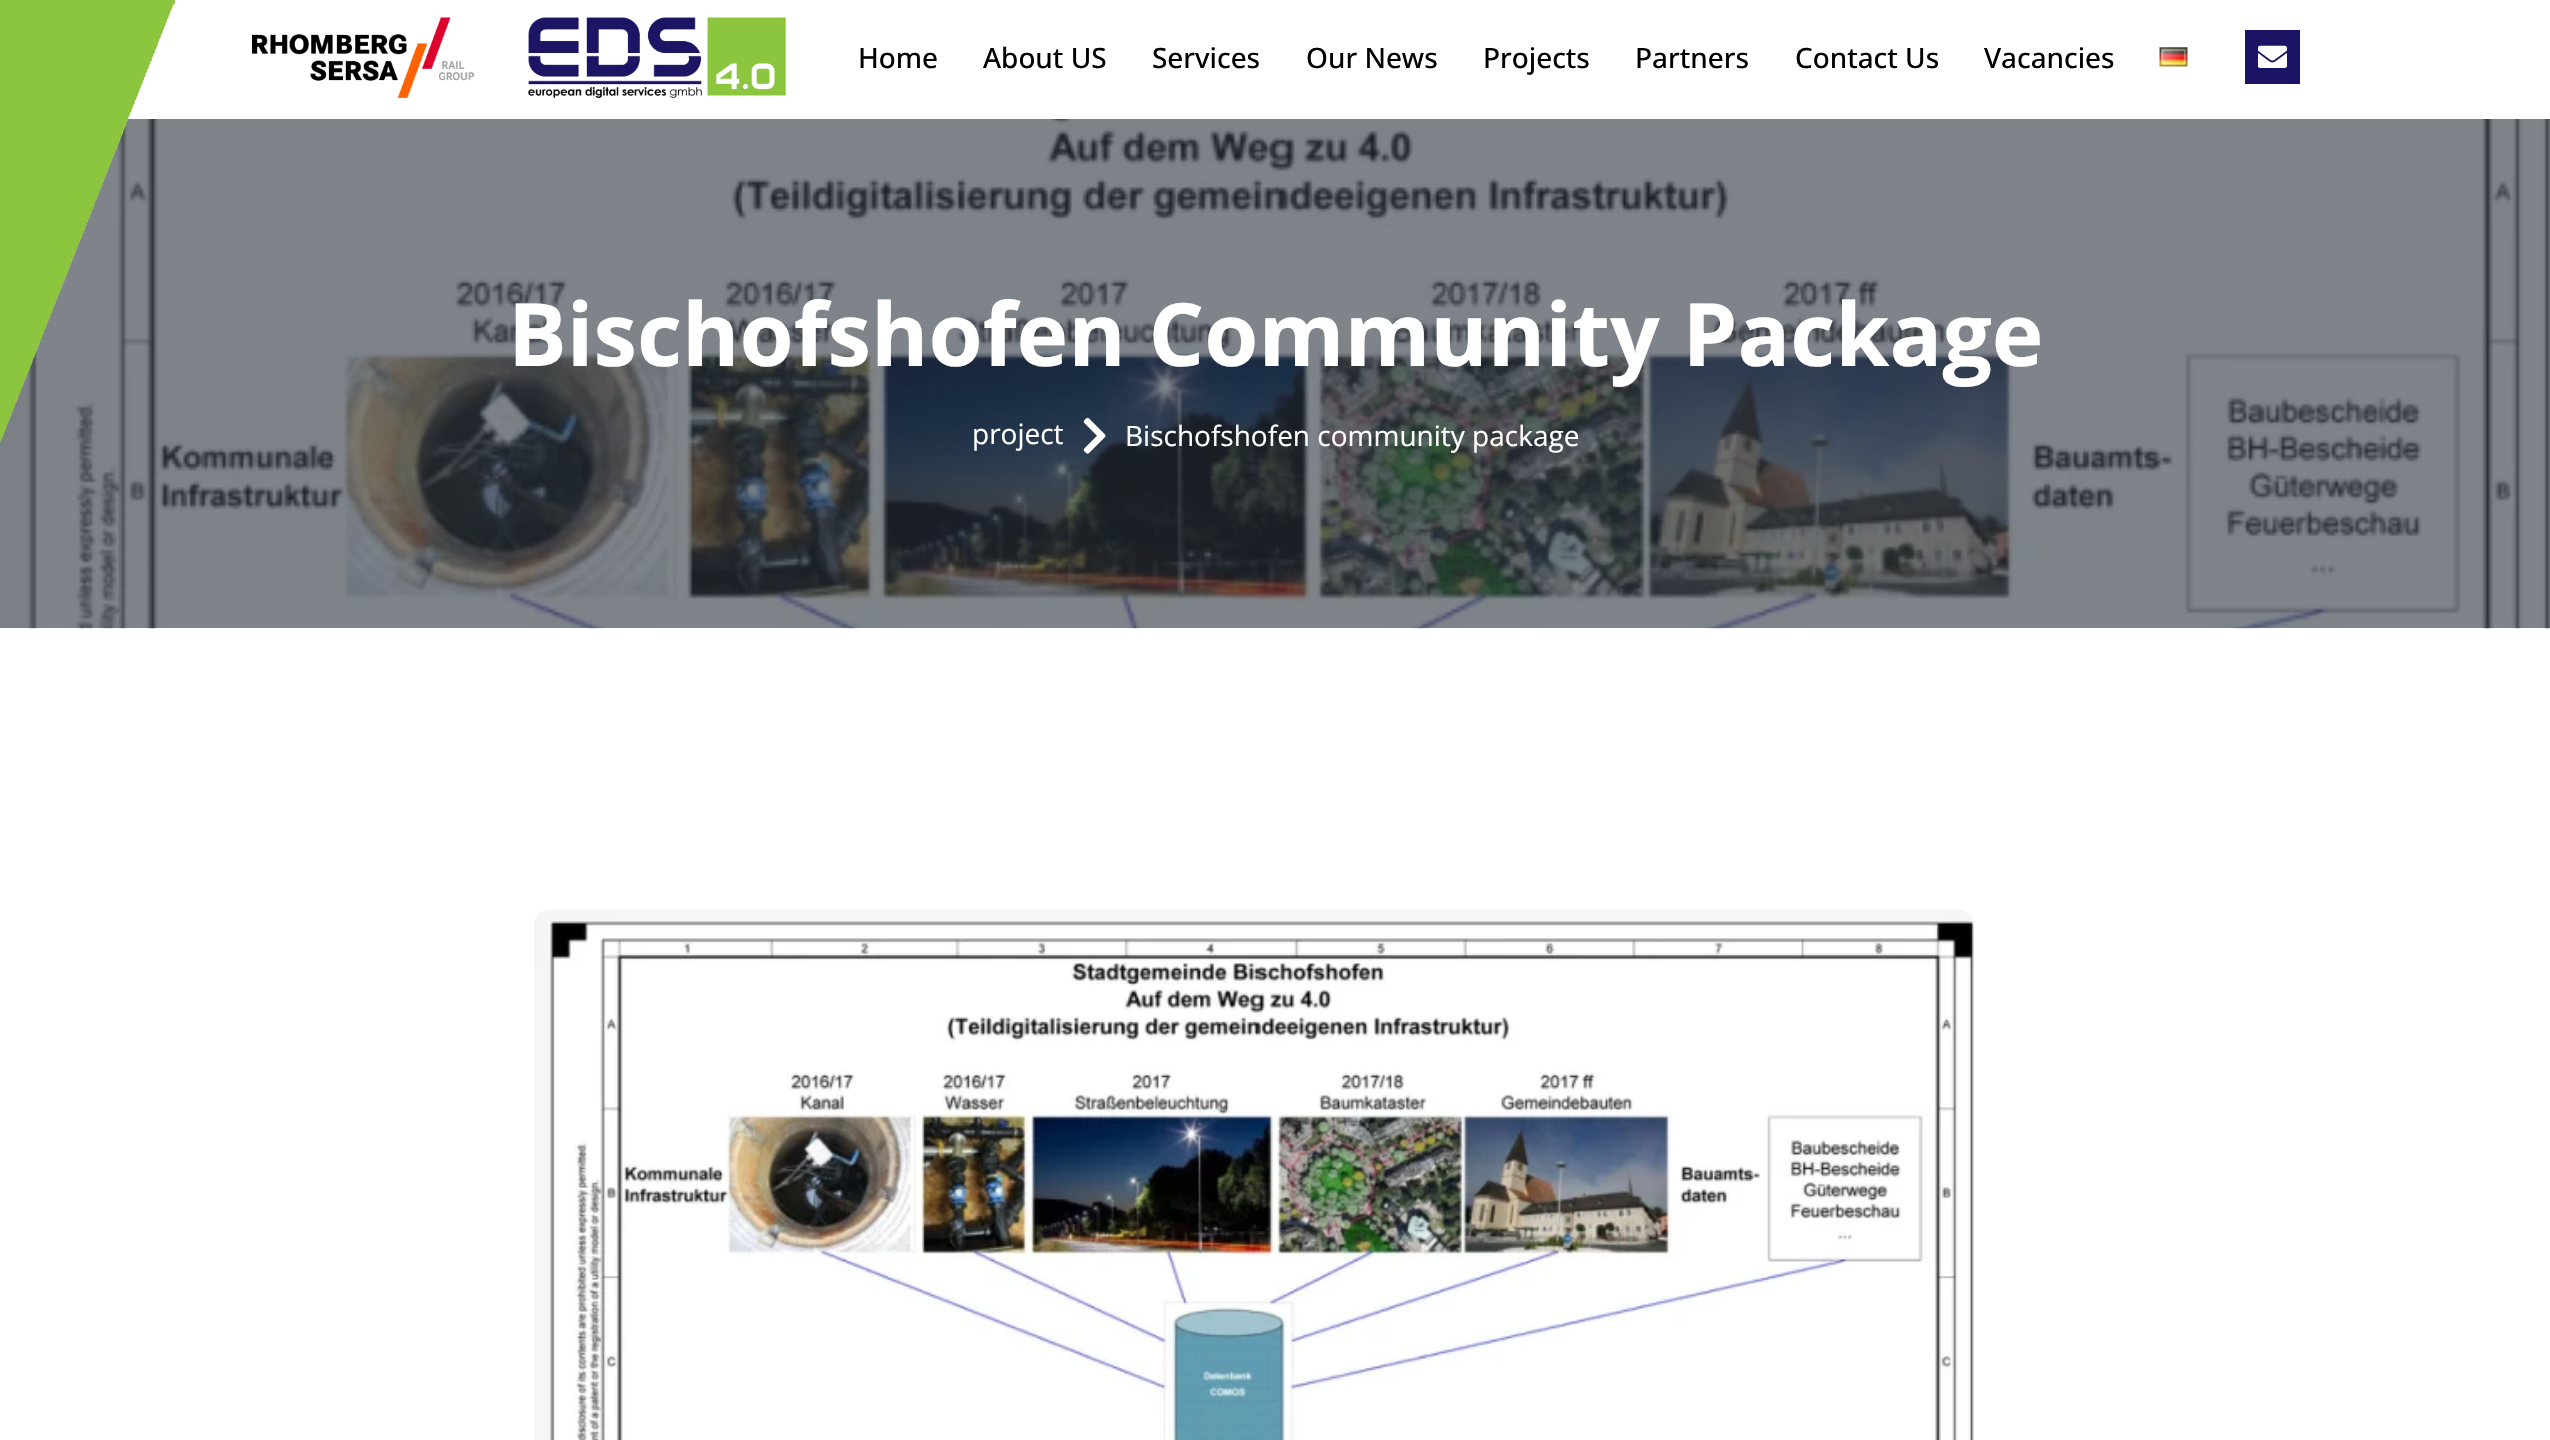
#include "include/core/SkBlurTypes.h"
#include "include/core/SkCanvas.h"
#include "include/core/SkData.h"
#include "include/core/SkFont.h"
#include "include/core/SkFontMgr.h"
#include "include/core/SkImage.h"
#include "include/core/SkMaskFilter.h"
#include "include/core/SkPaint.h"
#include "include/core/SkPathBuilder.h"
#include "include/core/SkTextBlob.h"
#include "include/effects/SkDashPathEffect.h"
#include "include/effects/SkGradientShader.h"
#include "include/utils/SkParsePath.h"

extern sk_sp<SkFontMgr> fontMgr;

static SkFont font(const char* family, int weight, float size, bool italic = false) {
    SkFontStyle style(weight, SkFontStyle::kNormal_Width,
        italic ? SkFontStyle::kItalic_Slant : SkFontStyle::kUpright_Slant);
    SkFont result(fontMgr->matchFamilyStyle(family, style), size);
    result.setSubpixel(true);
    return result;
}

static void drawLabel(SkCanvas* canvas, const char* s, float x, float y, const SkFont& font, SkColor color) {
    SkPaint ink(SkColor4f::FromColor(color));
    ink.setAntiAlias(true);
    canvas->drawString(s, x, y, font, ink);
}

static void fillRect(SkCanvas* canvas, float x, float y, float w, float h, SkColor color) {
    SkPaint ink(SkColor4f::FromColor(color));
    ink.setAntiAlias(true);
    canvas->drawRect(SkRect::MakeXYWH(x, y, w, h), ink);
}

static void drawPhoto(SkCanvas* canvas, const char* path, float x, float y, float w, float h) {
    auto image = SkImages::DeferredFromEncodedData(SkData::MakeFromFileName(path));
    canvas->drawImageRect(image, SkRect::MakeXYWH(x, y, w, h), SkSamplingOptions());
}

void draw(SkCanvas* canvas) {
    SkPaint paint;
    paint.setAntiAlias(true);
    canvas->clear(0xFFFFFFFF);
    drawPhoto(canvas, "assets/img5.png", 0, 119, 2550, 510);
    drawPhoto(canvas, "assets/img1.png", 0, 0, 175, 442);
    drawPhoto(canvas, "assets/img2.png", 252, 17, 534, 81);
    SkFont font1 = font("Open Sans", 500, 28);
    drawLabel(canvas, "Home", 858, 68, font1, 0xFF000000);
    drawLabel(canvas, "About US", 983, 68, font1, 0xFF000000);
    drawLabel(canvas, "Services", 1152, 68, font1, 0xFF000000);
    drawLabel(canvas, "Our News", 1306, 68, font1, 0xFF000000);
    drawLabel(canvas, "Projects", 1483, 68, font1, 0xFF000000);
    drawLabel(canvas, "Partners", 1635, 68, font1, 0xFF000000);
    drawLabel(canvas, "Contact Us", 1795, 68, font1, 0xFF000000);
    drawLabel(canvas, "Vacancies", 1984, 68, font1, 0xFF000000);
    drawPhoto(canvas, "assets/img3.png", 2159, 47, 29, 20);
    fillRect(canvas, 2245, 30, 55, 54, 0xFF1B1464);
    drawPhoto(canvas, "assets/img4.png", 2258, 45, 29, 23);
    SkFont font2 = font("Open Sans", 700, 87.5f);
    drawLabel(canvas, "Bischofshofen Community Package", 508, 366, font2, 0xFFFFFFFF);
    SkFont font3 = font("Open Sans", 400, 28);
    drawLabel(canvas, "project", 972, 444, font3, 0xFFFFFFFF);
    drawPhoto(canvas, "assets/img6.png", 1083, 417, 23, 37);
    drawLabel(canvas, "Bischofshofen community package", 1125, 446, font3, 0xFFFFFFFF);
    drawPhoto(canvas, "assets/img7.png", 534, 910, 1440, 530);
}
